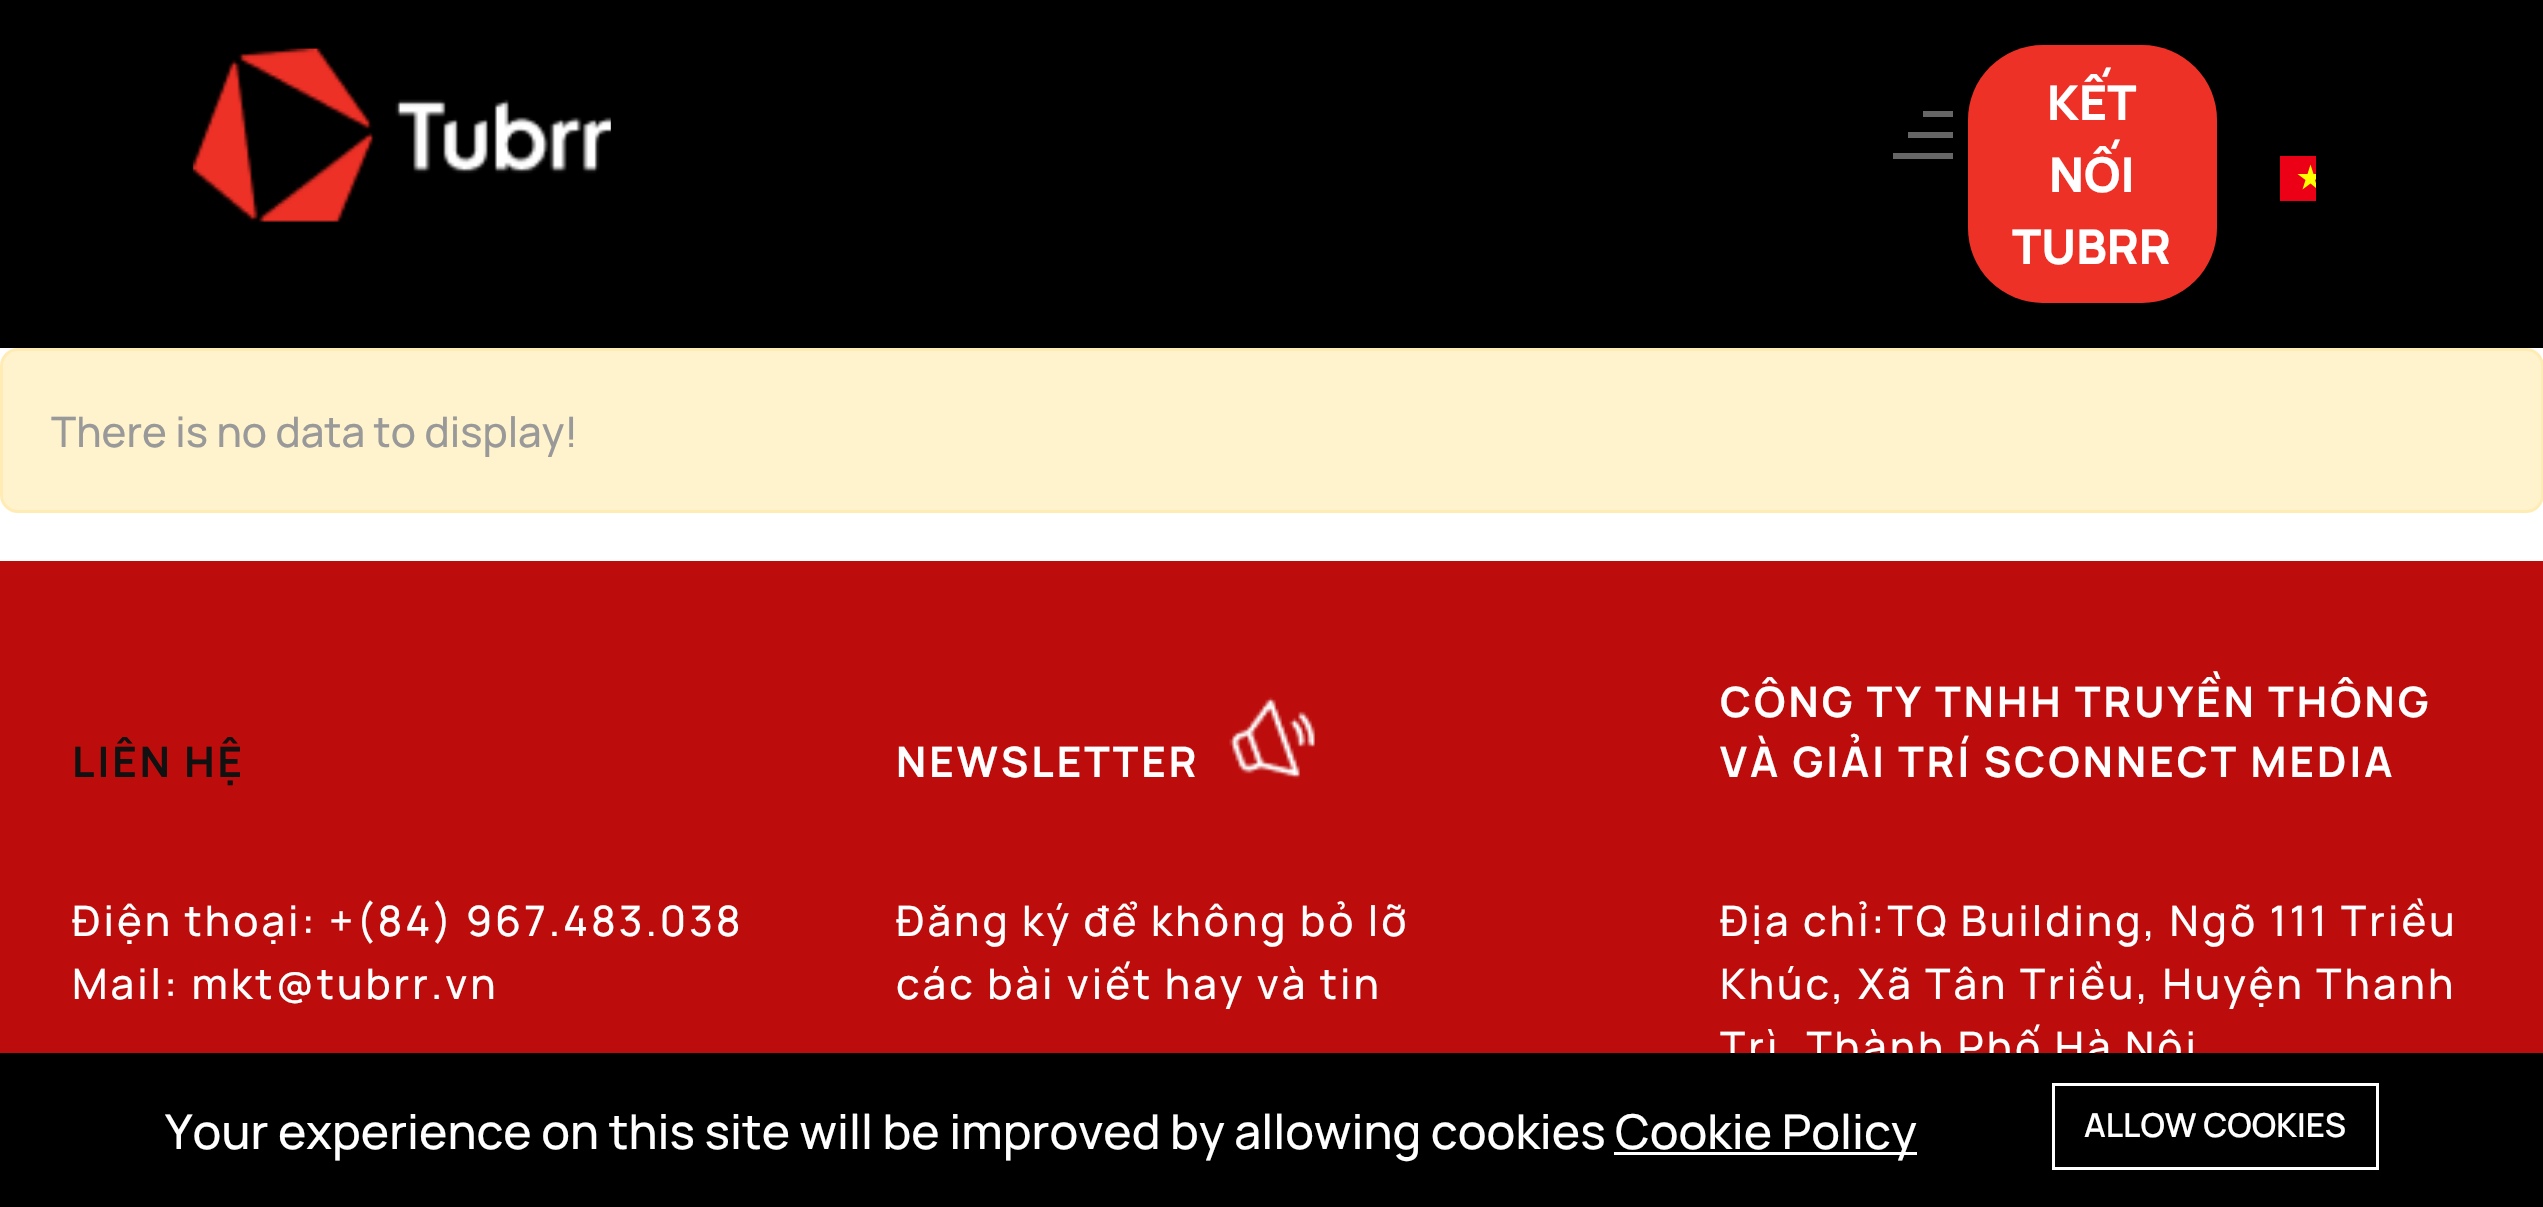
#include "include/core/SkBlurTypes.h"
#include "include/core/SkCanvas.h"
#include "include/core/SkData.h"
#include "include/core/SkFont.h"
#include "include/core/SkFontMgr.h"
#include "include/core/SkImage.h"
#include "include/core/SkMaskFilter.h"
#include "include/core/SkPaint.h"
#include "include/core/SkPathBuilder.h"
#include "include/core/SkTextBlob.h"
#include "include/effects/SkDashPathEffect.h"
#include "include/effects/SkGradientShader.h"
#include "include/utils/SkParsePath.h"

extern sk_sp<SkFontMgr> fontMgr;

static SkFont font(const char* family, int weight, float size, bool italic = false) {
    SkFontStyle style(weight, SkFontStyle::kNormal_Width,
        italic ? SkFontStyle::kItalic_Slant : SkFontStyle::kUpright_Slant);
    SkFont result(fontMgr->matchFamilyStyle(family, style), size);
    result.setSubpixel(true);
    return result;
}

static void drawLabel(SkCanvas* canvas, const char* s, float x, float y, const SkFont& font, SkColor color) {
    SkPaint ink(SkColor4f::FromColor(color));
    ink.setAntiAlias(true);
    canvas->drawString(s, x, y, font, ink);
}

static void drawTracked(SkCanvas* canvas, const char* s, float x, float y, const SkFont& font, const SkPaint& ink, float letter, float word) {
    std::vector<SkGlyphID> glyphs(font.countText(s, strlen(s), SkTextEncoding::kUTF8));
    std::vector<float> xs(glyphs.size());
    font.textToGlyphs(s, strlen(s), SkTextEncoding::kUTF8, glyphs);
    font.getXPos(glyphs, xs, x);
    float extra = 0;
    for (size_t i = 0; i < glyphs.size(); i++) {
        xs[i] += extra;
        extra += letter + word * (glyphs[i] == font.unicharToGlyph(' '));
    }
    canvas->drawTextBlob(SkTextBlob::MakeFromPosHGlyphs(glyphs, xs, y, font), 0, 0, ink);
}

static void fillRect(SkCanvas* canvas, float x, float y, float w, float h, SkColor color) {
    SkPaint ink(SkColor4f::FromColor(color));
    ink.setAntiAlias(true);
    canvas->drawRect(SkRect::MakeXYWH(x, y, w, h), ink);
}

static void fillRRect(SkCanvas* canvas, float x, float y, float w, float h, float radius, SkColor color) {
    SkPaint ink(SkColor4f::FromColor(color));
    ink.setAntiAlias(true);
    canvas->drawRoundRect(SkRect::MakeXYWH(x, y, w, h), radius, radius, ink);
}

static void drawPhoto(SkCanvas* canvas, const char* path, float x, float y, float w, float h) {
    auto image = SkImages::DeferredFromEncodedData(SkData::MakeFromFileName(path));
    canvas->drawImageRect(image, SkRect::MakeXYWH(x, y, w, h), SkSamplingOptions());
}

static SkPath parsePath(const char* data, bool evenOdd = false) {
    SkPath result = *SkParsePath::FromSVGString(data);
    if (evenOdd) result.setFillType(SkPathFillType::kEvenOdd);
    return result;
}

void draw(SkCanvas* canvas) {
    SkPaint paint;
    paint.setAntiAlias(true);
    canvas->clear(0xFFFFFFFF);
    fillRect(canvas, 0, 0, 2543, 348, 0xFF000000);
    drawPhoto(canvas, "assets/img1.png", 193, 48, 418, 174);
    fillRect(canvas, 1923, 111, 30, 6, 0xFF666666);
    fillRect(canvas, 1908, 132, 45, 6, 0xFF666666);
    fillRect(canvas, 1893, 153, 60, 6, 0xFF666666);
    fillRRect(canvas, 1968, 45, 249, 258, 75, 0xFFEE3127);
    SkFont font1 = font("Manrope", 800, 48);
    drawLabel(canvas, "KẾT", 2047, 120, font1, 0xFFFFFFFF);
    drawLabel(canvas, "NỐI", 2049, 192, font1, 0xFFFFFFFF);
    drawLabel(canvas, "TUBRR", 2012, 264, font1, 0xFFFFFFFF);
    fillRect(canvas, 2280, 156, 36, 45, 0xFFEC0015);
    canvas->save();
    canvas->clipRect(SkRect::MakeXYWH(2280, 156, 36, 45));
    paint.setColor(0xFFFFFF00);
    canvas->drawPath(parsePath("M2318 189.5L2310.5 183.5L2302.5 189.5L2305.5 180L2297.5 174H2307.5L2310.5 164.5L2313.5 174H2323L2315 180Z", true), paint);
    canvas->restore();
    paint.setColor(0xFFFFF3CD);
    canvas->drawRoundRect(SkRect::MakeXYWH(1.5f, 349.5f, 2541, 162), 16.5f, 16.5f, paint);
    paint.setStroke(true);
    paint.setStrokeWidth(3);
    paint.setColor(0xFFFFECB5);
    canvas->drawRoundRect(SkRect::MakeXYWH(1.5f, 349.5f, 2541, 162), 16.5f, 16.5f, paint);
    SkFont font2 = font("Manrope", 500, 42);
    drawLabel(canvas, "There is no data to display!", 51, 447, font2, 0xFF999999);
    fillRect(canvas, 0, 561, 2543, 492, 0xFFBC0C0C);
    SkFont font3 = font("Manrope", 700, 42);
    paint.setStroke(false);
    paint.setColor(0xFF111111);
    drawTracked(canvas, "LIÊN HỆ", 72, 777, font3, paint, 3, 0);
    paint.setColor(0xFFFFFFFF);
    drawTracked(canvas, "Điện thoại: +(84) 967.483.038", 72, 936, font2, paint, 3, 0);
    drawTracked(canvas, "Mail: mkt@tubrr.vn", 72, 999, font2, paint, 3, 0);
    drawTracked(canvas, "NEWSLETTER", 896, 777, font3, paint, 3, 0);
    drawPhoto(canvas, "assets/img2.png", 1229, 697, 86, 82);
    drawTracked(canvas, "Đăng ký để không bỏ lỡ", 896, 936, font2, paint, 3, 0);
    drawTracked(canvas, "các bài viết hay và tin", 896, 999, font2, paint, 3, 0);
    drawTracked(canvas, "CÔNG TY TNHH TRUYỀN THÔNG", 1720, 717, font3, paint, 3, 0);
    drawTracked(canvas, "VÀ GIẢI TRÍ SCONNECT MEDIA", 1720, 777, font3, paint, 3, 0);
    drawTracked(canvas, "Địa chỉ:TQ Building, Ngõ 111 Triều", 1720, 936, font2, paint, 3, 0);
    drawTracked(canvas, "Khúc, Xã Tân Triều, Huyện Thanh", 1720, 999, font2, paint, 3, 0);
    drawTracked(canvas, "Trì, Thành Phố Hà Nội", 1720, 1062, font2, paint, 3, 0);
    fillRect(canvas, 0, 1053, 2543, 154, 0xFF000000);
    SkFont font4 = font("Manrope", 500, 48);
    drawLabel(canvas, "Your experience on this site will be improved by allowing cookies", 165, 1149, font4, 0xFFFFFFFF);
    fillRect(canvas, 1614, 1152, 303, 3, 0xFFFFFFFF);
    drawLabel(canvas, "Cookie Policy", 1615, 1149, font4, 0xFFFFFFFF);
    paint.setStroke(true);
    canvas->drawRect(SkRect::MakeXYWH(2053.5f, 1084.5f, 324, 84), paint);
    SkFont font5 = font("Manrope", 600, 33);
    drawLabel(canvas, "ALLOW COOKIES", 2084, 1137, font5, 0xFFFFFFFF);
}
